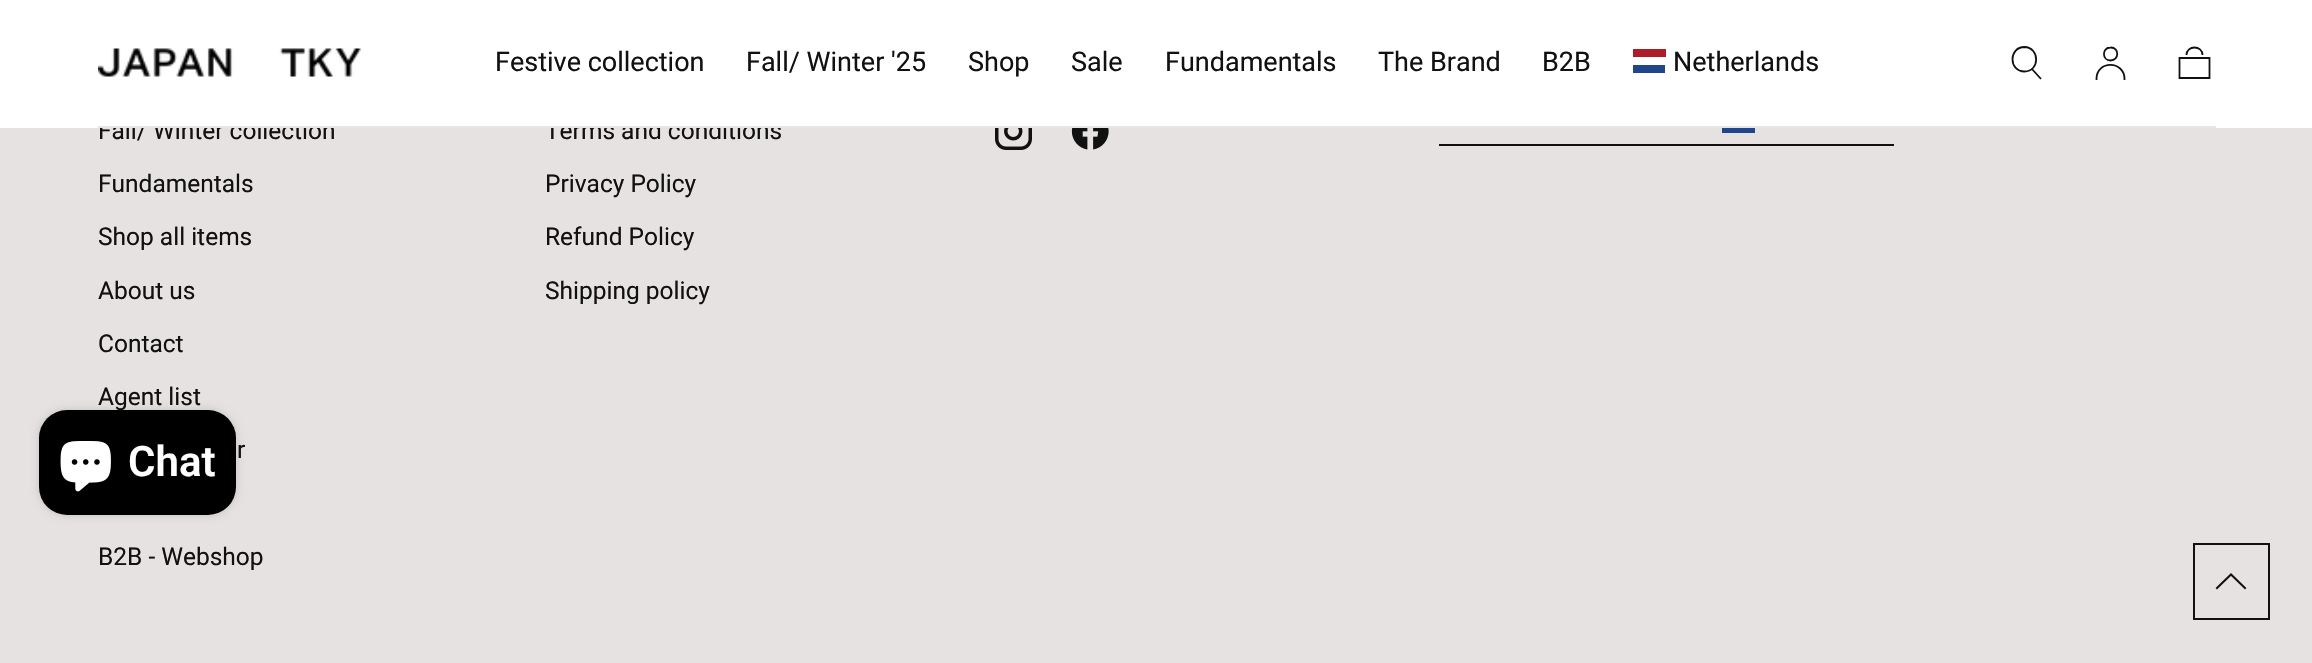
#include "include/core/SkBlurTypes.h"
#include "include/core/SkCanvas.h"
#include "include/core/SkData.h"
#include "include/core/SkFont.h"
#include "include/core/SkFontMgr.h"
#include "include/core/SkImage.h"
#include "include/core/SkMaskFilter.h"
#include "include/core/SkPaint.h"
#include "include/core/SkPathBuilder.h"
#include "include/core/SkTextBlob.h"
#include "include/effects/SkDashPathEffect.h"
#include "include/effects/SkGradientShader.h"
#include "include/utils/SkParsePath.h"

extern sk_sp<SkFontMgr> fontMgr;

static SkFont font(const char* family, int weight, float size, bool italic = false) {
    SkFontStyle style(weight, SkFontStyle::kNormal_Width,
        italic ? SkFontStyle::kItalic_Slant : SkFontStyle::kUpright_Slant);
    SkFont result(fontMgr->matchFamilyStyle(family, style), size);
    result.setSubpixel(true);
    return result;
}

static void drawLabel(SkCanvas* canvas, const char* s, float x, float y, const SkFont& font, SkColor color) {
    SkPaint ink(SkColor4f::FromColor(color));
    ink.setAntiAlias(true);
    canvas->drawString(s, x, y, font, ink);
}

static void fillRect(SkCanvas* canvas, float x, float y, float w, float h, SkColor color) {
    SkPaint ink(SkColor4f::FromColor(color));
    ink.setAntiAlias(true);
    canvas->drawRect(SkRect::MakeXYWH(x, y, w, h), ink);
}

static void fillRRect(SkCanvas* canvas, float x, float y, float w, float h, float radius, SkColor color) {
    SkPaint ink(SkColor4f::FromColor(color));
    ink.setAntiAlias(true);
    canvas->drawRoundRect(SkRect::MakeXYWH(x, y, w, h), radius, radius, ink);
}

static void drawPhoto(SkCanvas* canvas, const char* path, float x, float y, float w, float h) {
    auto image = SkImages::DeferredFromEncodedData(SkData::MakeFromFileName(path));
    canvas->drawImageRect(image, SkRect::MakeXYWH(x, y, w, h), SkSamplingOptions());
}

static SkPath parsePath(const char* data, bool evenOdd = false) {
    SkPath result = *SkParsePath::FromSVGString(data);
    if (evenOdd) result.setFillType(SkPathFillType::kEvenOdd);
    return result;
}

void draw(SkCanvas* canvas) {
    SkPaint paint;
    paint.setAntiAlias(true);
    canvas->clear(0xFFE6E2E1);
    SkFont font1 = font("Roboto", 400, 24.5f);
    drawLabel(canvas, "Fall/ Winter collection", 98, 139, font1, 0xFF111111);
    drawLabel(canvas, "Terms and conditions", 545, 139, font1, 0xFF111111);
    fillRect(canvas, 0, 0, 2312, 128, 0xFFFFFFFF);
    drawPhoto(canvas, "assets/img1.png", 98, 48, 263, 29);
    SkFont font2 = font("Roboto", 400, 27);
    drawLabel(canvas, "Festive collection", 495, 71, font2, 0xFF111111);
    drawLabel(canvas, "Fall/ Winter '25", 746, 71, font2, 0xFF111111);
    drawLabel(canvas, "Shop", 968, 71, font2, 0xFF111111);
    drawLabel(canvas, "Sale", 1071, 71, font2, 0xFF111111);
    drawLabel(canvas, "Fundamentals", 1165, 71, font2, 0xFF111111);
    drawLabel(canvas, "The Brand", 1378, 71, font2, 0xFF111111);
    drawLabel(canvas, "B2B", 1542, 71, font2, 0xFF111111);
    fillRect(canvas, 1633, 65, 32, 8, 0xFF21468B);
    fillRect(canvas, 1633, 49, 33, 8, 0xFFAE1C28);
    drawLabel(canvas, "Netherlands", 1673, 71, font2, 0xFF111111);
    paint.setStroke(true);
    paint.setStrokeWidth(1.8f);
    paint.setColor(0xFF111111);
    canvas->drawPath(parsePath("M2031.5 68.5L2041 79M2024.5 71.5C2040 71.5 2040 47.5 2024.5 47C2008.5 47 2008.5 71.5 2024.5 71.5Z"), paint);
    paint.setStrokeCap(SkPaint::kSquare_Cap);
    canvas->drawPath(parsePath("M2096.5 79C2096.5 60 2124.5 60.5 2124.5 79M2110.5 60.5C2119.5 60.5 2119.5 47 2110.5 47.5C2101.5 47.5 2102 60.5 2110.5 60.5Z"), paint);
    paint.setStrokeCap(SkPaint::kButt_Cap);
    canvas->drawPath(parsePath("M2209.5 78H2179.5V58H2209.5ZM2202.5 55C2202.5 45 2186.5 45 2186.5 55"), paint);
    fillRect(canvas, 98, 126, 2118, 2, 0xFFE6E6E6);
    drawLabel(canvas, "Fundamentals", 98, 192, font1, 0xFF111111);
    drawLabel(canvas, "Shop all items", 98, 245, font1, 0xFF111111);
    drawLabel(canvas, "About us", 98, 299, font1, 0xFF111111);
    drawLabel(canvas, "Contact", 98, 352, font1, 0xFF111111);
    drawLabel(canvas, "Agent list", 98, 405, font1, 0xFF111111);
    drawLabel(canvas, "r", 237, 458, font1, 0xFF111111);
    drawLabel(canvas, "B2B - Webshop", 98, 565, font1, 0xFF111111);
    drawLabel(canvas, "Privacy Policy", 545, 192, font1, 0xFF111111);
    drawLabel(canvas, "Refund Policy", 545, 245, font1, 0xFF111111);
    drawLabel(canvas, "Shipping policy", 545, 299, font1, 0xFF111111);
    drawPhoto(canvas, "assets/img2.png", 995, 128, 37, 22);
    drawPhoto(canvas, "assets/img3.png", 1071, 128, 38, 22);
    fillRect(canvas, 1722, 128, 33, 5, 0xFF21468B);
    fillRect(canvas, 1439, 144, 455, 2, 0xFF111111);
    paint.setStroke(false);
    paint.setColor(0x26000000);
    paint.setMaskFilter(SkMaskFilter::MakeBlur(kNormal_SkBlurStyle, 4.5f));
    canvas->drawRoundRect(SkRect::MakeXYWH(39, 410, 197, 105), 28, 28, paint);
    paint.setMaskFilter(nullptr);
    fillRRect(canvas, 39, 410, 197, 105, 28, 0xFF000000);
    drawPhoto(canvas, "assets/img4.png", 60, 441, 51, 51);
    SkFont font3 = font("Roboto", 600, 42);
    drawLabel(canvas, "Chat", 128, 476, font3, 0xFFFFFFFF);
    paint.setStroke(true);
    paint.setStrokeWidth(2);
    paint.setColor(0xFF111111);
    canvas->drawRect(SkRect::MakeXYWH(2194, 544, 75, 75), paint);
    paint.setStrokeCap(SkPaint::kSquare_Cap);
    canvas->drawPath(parsePath("M2217 588L2231 574.5L2245 588"), paint);
}
